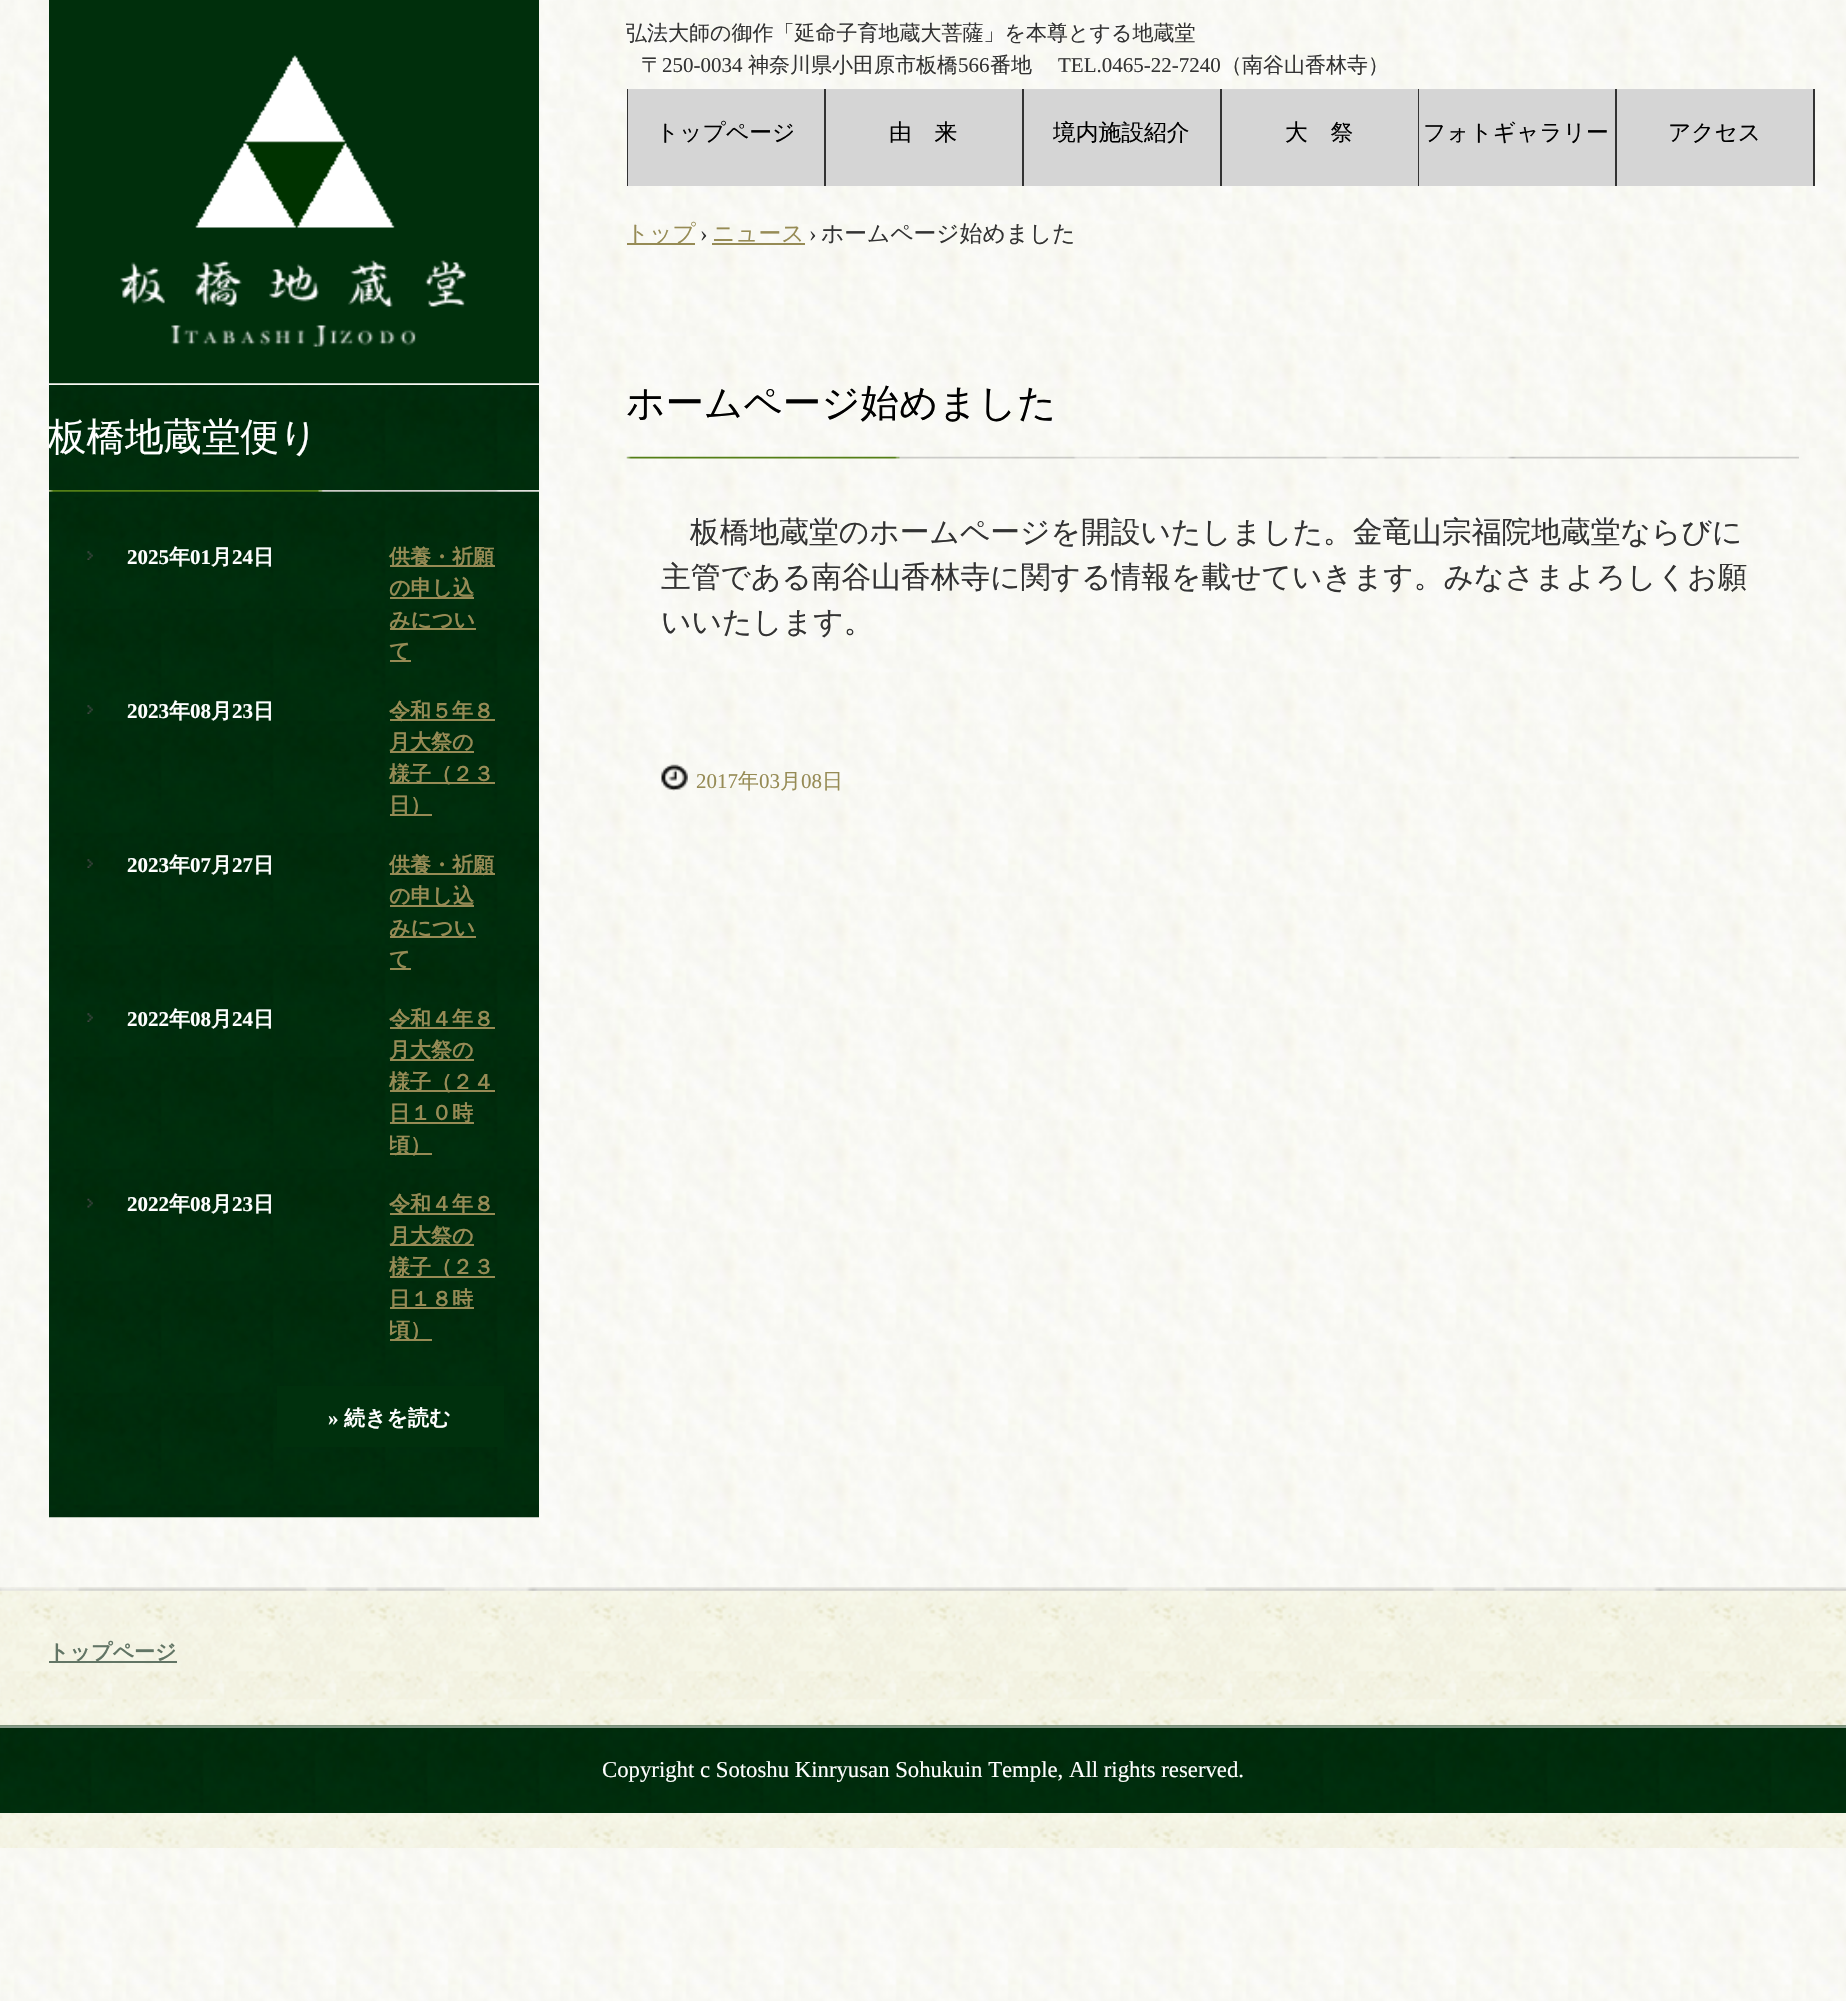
#include "include/core/SkBlurTypes.h"
#include "include/core/SkCanvas.h"
#include "include/core/SkData.h"
#include "include/core/SkFont.h"
#include "include/core/SkFontMgr.h"
#include "include/core/SkImage.h"
#include "include/core/SkMaskFilter.h"
#include "include/core/SkPaint.h"
#include "include/core/SkPathBuilder.h"
#include "include/core/SkTextBlob.h"
#include "include/effects/SkDashPathEffect.h"
#include "include/effects/SkGradientShader.h"
#include "include/utils/SkParsePath.h"

extern sk_sp<SkFontMgr> fontMgr;

static SkFont font(const char* family, int weight, float size, bool italic = false) {
    SkFontStyle style(weight, SkFontStyle::kNormal_Width,
        italic ? SkFontStyle::kItalic_Slant : SkFontStyle::kUpright_Slant);
    SkFont result(fontMgr->matchFamilyStyle(family, style), size);
    result.setSubpixel(true);
    return result;
}

static void drawLabel(SkCanvas* canvas, const char* s, float x, float y, const SkFont& font, SkColor color) {
    SkPaint ink(SkColor4f::FromColor(color));
    ink.setAntiAlias(true);
    canvas->drawString(s, x, y, font, ink);
}

static void fillRect(SkCanvas* canvas, float x, float y, float w, float h, SkColor color) {
    SkPaint ink(SkColor4f::FromColor(color));
    ink.setAntiAlias(true);
    canvas->drawRect(SkRect::MakeXYWH(x, y, w, h), ink);
}

static void drawPhoto(SkCanvas* canvas, const char* path, float x, float y, float w, float h) {
    auto image = SkImages::DeferredFromEncodedData(SkData::MakeFromFileName(path));
    canvas->drawImageRect(image, SkRect::MakeXYWH(x, y, w, h), SkSamplingOptions());
}

void draw(SkCanvas* canvas) {
    SkPaint paint;
    paint.setAntiAlias(true);
    canvas->clear(0xFFFFFFFF);
    drawPhoto(canvas, "assets/img1.png", 0, 0, 1846, 2001);
    drawPhoto(canvas, "assets/img2.png", 49, 0, 490, 384);
    SkFont font1 = font("WenQuanYi Zen Hei", 500, 21);
    drawLabel(canvas, "弘法大師の御作「延命子育地蔵大菩薩」を本尊とする地蔵堂", 626, 40, font1, 0xFF333333);
    drawLabel(canvas, "〒", 641, 72, font1, 0xFF333333);
    SkFont font2 = font("Liberation Serif", 400, 21);
    drawLabel(canvas, "250-0034", 662, 72, font2, 0xFF333333);
    drawLabel(canvas, "神奈川県小田原市板橋", 748, 72, font1, 0xFF333333);
    drawLabel(canvas, "566", 958, 72, font2, 0xFF333333);
    drawLabel(canvas, "番地", 990, 72, font1, 0xFF333333);
    drawLabel(canvas, "TEL.0465-22-7240", 1058, 72, font2, 0xFF333333);
    drawLabel(canvas, "（南谷山香林寺）", 1221, 72, font1, 0xFF333333);
    drawPhoto(canvas, "assets/img3.png", 49, 385, 490, 1133);
    drawPhoto(canvas, "assets/img4.png", 49, 490, 490, 2);
    SkFont font3 = font("WenQuanYi Zen Hei", 500, 38.5f);
    drawLabel(canvas, "板橋地蔵堂便り", 48, 450, font3, 0xFFFFFFFF);
    drawPhoto(canvas, "assets/img5.png", 87, 551, 6, 9);
    SkFont font4 = font("Liberation Serif", 700, 21);
    drawLabel(canvas, "2025", 127, 564, font4, 0xFFFFFFFF);
    SkFont font5 = font("WenQuanYi Zen Hei", 700, 21);
    drawLabel(canvas, "年", 169, 564, font5, 0xFFFFFFFF);
    drawLabel(canvas, "01", 190, 564, font4, 0xFFFFFFFF);
    drawLabel(canvas, "月", 211, 564, font5, 0xFFFFFFFF);
    drawLabel(canvas, "24", 232, 564, font4, 0xFFFFFFFF);
    drawLabel(canvas, "日", 253, 564, font5, 0xFFFFFFFF);
    fillRect(canvas, 390, 565, 105, 2, 0xFF968B55);
    drawLabel(canvas, "供養・祈願", 389, 564, font5, 0xFF968B55);
    fillRect(canvas, 390, 597, 84, 2, 0xFF968B55);
    drawLabel(canvas, "の申し込", 389, 595, font5, 0xFF968B55);
    fillRect(canvas, 390, 628, 86, 2, 0xFF968B55);
    drawLabel(canvas, "みについ", 389, 627, font5, 0xFF968B55);
    fillRect(canvas, 390, 660, 21, 2, 0xFF968B55);
    drawLabel(canvas, "て", 389, 658, font5, 0xFF968B55);
    drawPhoto(canvas, "assets/img6.png", 87, 705, 6, 9);
    drawLabel(canvas, "2023", 127, 718, font4, 0xFFFFFFFF);
    drawLabel(canvas, "年", 169, 718, font5, 0xFFFFFFFF);
    drawLabel(canvas, "08", 190, 718, font4, 0xFFFFFFFF);
    drawLabel(canvas, "月", 211, 718, font5, 0xFFFFFFFF);
    drawLabel(canvas, "23", 232, 718, font4, 0xFFFFFFFF);
    drawLabel(canvas, "日", 253, 718, font5, 0xFFFFFFFF);
    fillRect(canvas, 390, 719, 105, 2, 0xFF968B55);
    drawLabel(canvas, "令和５年８", 389, 718, font5, 0xFF968B55);
    fillRect(canvas, 390, 751, 84, 2, 0xFF968B55);
    drawLabel(canvas, "月大祭の", 389, 749, font5, 0xFF968B55);
    fillRect(canvas, 390, 782, 105, 2, 0xFF968B55);
    drawLabel(canvas, "様子（２３", 389, 781, font5, 0xFF968B55);
    fillRect(canvas, 390, 814, 42, 2, 0xFF968B55);
    drawLabel(canvas, "日）", 389, 812, font5, 0xFF968B55);
    drawPhoto(canvas, "assets/img7.png", 87, 859, 6, 9);
    drawLabel(canvas, "2023", 127, 872, font4, 0xFFFFFFFF);
    drawLabel(canvas, "年", 169, 872, font5, 0xFFFFFFFF);
    drawLabel(canvas, "07", 190, 872, font4, 0xFFFFFFFF);
    drawLabel(canvas, "月", 211, 872, font5, 0xFFFFFFFF);
    drawLabel(canvas, "27", 232, 872, font4, 0xFFFFFFFF);
    drawLabel(canvas, "日", 253, 872, font5, 0xFFFFFFFF);
    fillRect(canvas, 390, 873, 105, 2, 0xFF968B55);
    drawLabel(canvas, "供養・祈願", 389, 872, font5, 0xFF968B55);
    fillRect(canvas, 390, 905, 84, 2, 0xFF968B55);
    drawLabel(canvas, "の申し込", 389, 903, font5, 0xFF968B55);
    fillRect(canvas, 390, 936, 86, 2, 0xFF968B55);
    drawLabel(canvas, "みについ", 389, 935, font5, 0xFF968B55);
    fillRect(canvas, 390, 968, 21, 2, 0xFF968B55);
    drawLabel(canvas, "て", 389, 966, font5, 0xFF968B55);
    drawPhoto(canvas, "assets/img8.png", 87, 1013, 6, 9);
    drawLabel(canvas, "2022", 127, 1026, font4, 0xFFFFFFFF);
    drawLabel(canvas, "年", 169, 1026, font5, 0xFFFFFFFF);
    drawLabel(canvas, "08", 190, 1026, font4, 0xFFFFFFFF);
    drawLabel(canvas, "月", 211, 1026, font5, 0xFFFFFFFF);
    drawLabel(canvas, "24", 232, 1026, font4, 0xFFFFFFFF);
    drawLabel(canvas, "日", 253, 1026, font5, 0xFFFFFFFF);
    fillRect(canvas, 390, 1027, 105, 2, 0xFF968B55);
    drawLabel(canvas, "令和４年８", 389, 1026, font5, 0xFF968B55);
    fillRect(canvas, 390, 1059, 84, 2, 0xFF968B55);
    drawLabel(canvas, "月大祭の", 389, 1057, font5, 0xFF968B55);
    fillRect(canvas, 390, 1090, 105, 2, 0xFF968B55);
    drawLabel(canvas, "様子（２４", 389, 1089, font5, 0xFF968B55);
    fillRect(canvas, 390, 1122, 84, 2, 0xFF968B55);
    drawLabel(canvas, "日１０時", 389, 1120, font5, 0xFF968B55);
    fillRect(canvas, 390, 1153, 42, 2, 0xFF968B55);
    drawLabel(canvas, "頃）", 389, 1152, font5, 0xFF968B55);
    drawPhoto(canvas, "assets/img9.png", 87, 1198, 6, 10);
    drawLabel(canvas, "2022", 127, 1211, font4, 0xFFFFFFFF);
    drawLabel(canvas, "年", 169, 1211, font5, 0xFFFFFFFF);
    drawLabel(canvas, "08", 190, 1211, font4, 0xFFFFFFFF);
    drawLabel(canvas, "月", 211, 1211, font5, 0xFFFFFFFF);
    drawLabel(canvas, "23", 232, 1211, font4, 0xFFFFFFFF);
    drawLabel(canvas, "日", 253, 1211, font5, 0xFFFFFFFF);
    fillRect(canvas, 390, 1213, 105, 2, 0xFF968B55);
    drawLabel(canvas, "令和４年８", 389, 1211, font5, 0xFF968B55);
    fillRect(canvas, 390, 1244, 84, 2, 0xFF968B55);
    drawLabel(canvas, "月大祭の", 389, 1243, font5, 0xFF968B55);
    fillRect(canvas, 390, 1276, 105, 2, 0xFF968B55);
    drawLabel(canvas, "様子（２３", 389, 1274, font5, 0xFF968B55);
    fillRect(canvas, 390, 1307, 84, 2, 0xFF968B55);
    drawLabel(canvas, "日１８時", 389, 1306, font5, 0xFF968B55);
    fillRect(canvas, 390, 1339, 42, 2, 0xFF968B55);
    drawLabel(canvas, "頃）", 389, 1337, font5, 0xFF968B55);
    fillRect(canvas, 277, 1386, 227, 61, 0xFF00300D);
    drawLabel(canvas, "»", 328, 1425, font4, 0xFFFFFFFF);
    drawLabel(canvas, "続きを読む", 344, 1425, font5, 0xFFFFFFFF);
    fillRect(canvas, 627, 89, 1, 97, 0xFF333333);
    fillRect(canvas, 824, 89, 2, 97, 0xFF333333);
    fillRect(canvas, 628, 89, 196, 97, 0xFFD5D5D5);
    SkFont font6 = font("WenQuanYi Zen Hei", 500, 22.75f);
    drawLabel(canvas, "トップページ", 656, 140, font6, 0xFF000000);
    fillRect(canvas, 1022, 89, 2, 97, 0xFF333333);
    fillRect(canvas, 826, 89, 196, 97, 0xFFD5D5D5);
    drawLabel(canvas, "由　来", 889, 140, font6, 0xFF000000);
    fillRect(canvas, 1220, 89, 2, 97, 0xFF333333);
    fillRect(canvas, 1024, 89, 196, 97, 0xFFD5D5D5);
    drawLabel(canvas, "境内施設紹介", 1053, 140, font6, 0xFF000000);
    fillRect(canvas, 1418, 89, 1, 97, 0xFF333333);
    fillRect(canvas, 1222, 89, 196, 97, 0xFFD5D5D5);
    drawLabel(canvas, "大　祭", 1285, 140, font6, 0xFF000000);
    fillRect(canvas, 1615, 89, 2, 97, 0xFF333333);
    fillRect(canvas, 1419, 89, 196, 97, 0xFFD5D5D5);
    drawLabel(canvas, "フォトギャラリー", 1423, 140, font6, 0xFF000000);
    fillRect(canvas, 1813, 89, 2, 97, 0xFF333333);
    fillRect(canvas, 1617, 89, 196, 97, 0xFFD5D5D5);
    drawLabel(canvas, "アクセス", 1668, 140, font6, 0xFF000000);
    fillRect(canvas, 627, 243, 68, 2, 0xFF968B55);
    drawLabel(canvas, "トップ", 626, 241, font6, 0xFF968B55);
    SkFont font7 = font("Liberation Serif", 400, 22.75f);
    drawLabel(canvas, "›", 700, 241, font7, 0xFF333333);
    drawLabel(canvas, "ニュース", 712, 241, font6, 0xFF968B55);
    fillRect(canvas, 712, 243, 93, 2, 0xFF968B55);
    drawLabel(canvas, "›", 809, 241, font7, 0xFF333333);
    drawLabel(canvas, "ホームページ始めました", 821, 241, font6, 0xFF333333);
    drawPhoto(canvas, "assets/img10.png", 626, 456, 1173, 3);
    drawLabel(canvas, "ホームページ始めました", 626, 416, font3, 0xFF000000);
    SkFont font8 = font("WenQuanYi Zen Hei", 500, 29.75f);
    drawLabel(canvas, "板橋地蔵堂のホームページを開設いたしました。金竜山宗福院地蔵堂ならびに", 690, 542, font8, 0xFF333333);
    drawLabel(canvas, "主管である南谷山香林寺に関する情報を載せていきます。みなさまよろしくお願", 661, 587, font8, 0xFF333333);
    drawLabel(canvas, "いいたします。", 661, 632, font8, 0xFF333333);
    drawPhoto(canvas, "assets/img11.png", 661, 764, 27, 27);
    drawLabel(canvas, "2017", 696, 788, font2, 0xFF968B55);
    drawLabel(canvas, "年", 738, 788, font1, 0xFF968B55);
    drawLabel(canvas, "03", 759, 788, font2, 0xFF968B55);
    drawLabel(canvas, "月", 780, 788, font1, 0xFF968B55);
    drawLabel(canvas, "08", 801, 788, font2, 0xFF968B55);
    drawLabel(canvas, "日", 822, 788, font1, 0xFF968B55);
    drawPhoto(canvas, "assets/img12.png", 0, 1587, 1846, 261);
    drawPhoto(canvas, "assets/img13.png", 0, 1587, 1846, 4);
    fillRect(canvas, 49, 1661, 128, 2, 0xFF627565);
    drawLabel(canvas, "トップページ", 48, 1659, font5, 0xFF627565);
    drawPhoto(canvas, "assets/img14.png", 0, 1725, 1846, 88);
    fillRect(canvas, 0, 1726, 1846, 2, 0xFF859A88);
    drawLabel(canvas, "Copyright c Sotoshu Kinryusan Sohukuin Temple, All rights reserved.", 602, 1777, font7, 0xFFFFFFFF);
}
